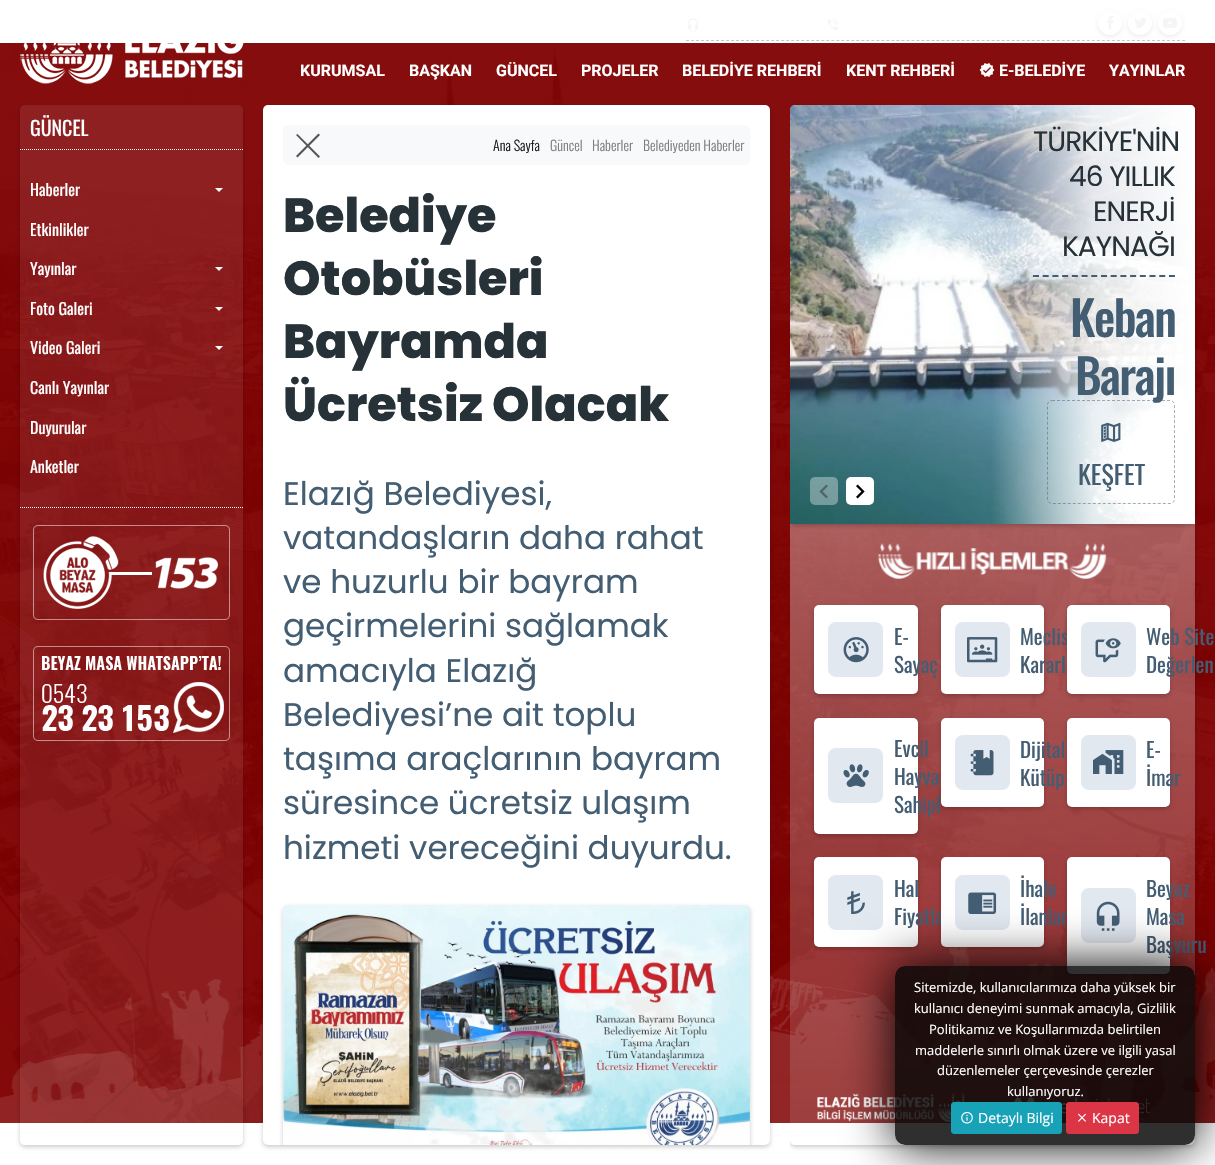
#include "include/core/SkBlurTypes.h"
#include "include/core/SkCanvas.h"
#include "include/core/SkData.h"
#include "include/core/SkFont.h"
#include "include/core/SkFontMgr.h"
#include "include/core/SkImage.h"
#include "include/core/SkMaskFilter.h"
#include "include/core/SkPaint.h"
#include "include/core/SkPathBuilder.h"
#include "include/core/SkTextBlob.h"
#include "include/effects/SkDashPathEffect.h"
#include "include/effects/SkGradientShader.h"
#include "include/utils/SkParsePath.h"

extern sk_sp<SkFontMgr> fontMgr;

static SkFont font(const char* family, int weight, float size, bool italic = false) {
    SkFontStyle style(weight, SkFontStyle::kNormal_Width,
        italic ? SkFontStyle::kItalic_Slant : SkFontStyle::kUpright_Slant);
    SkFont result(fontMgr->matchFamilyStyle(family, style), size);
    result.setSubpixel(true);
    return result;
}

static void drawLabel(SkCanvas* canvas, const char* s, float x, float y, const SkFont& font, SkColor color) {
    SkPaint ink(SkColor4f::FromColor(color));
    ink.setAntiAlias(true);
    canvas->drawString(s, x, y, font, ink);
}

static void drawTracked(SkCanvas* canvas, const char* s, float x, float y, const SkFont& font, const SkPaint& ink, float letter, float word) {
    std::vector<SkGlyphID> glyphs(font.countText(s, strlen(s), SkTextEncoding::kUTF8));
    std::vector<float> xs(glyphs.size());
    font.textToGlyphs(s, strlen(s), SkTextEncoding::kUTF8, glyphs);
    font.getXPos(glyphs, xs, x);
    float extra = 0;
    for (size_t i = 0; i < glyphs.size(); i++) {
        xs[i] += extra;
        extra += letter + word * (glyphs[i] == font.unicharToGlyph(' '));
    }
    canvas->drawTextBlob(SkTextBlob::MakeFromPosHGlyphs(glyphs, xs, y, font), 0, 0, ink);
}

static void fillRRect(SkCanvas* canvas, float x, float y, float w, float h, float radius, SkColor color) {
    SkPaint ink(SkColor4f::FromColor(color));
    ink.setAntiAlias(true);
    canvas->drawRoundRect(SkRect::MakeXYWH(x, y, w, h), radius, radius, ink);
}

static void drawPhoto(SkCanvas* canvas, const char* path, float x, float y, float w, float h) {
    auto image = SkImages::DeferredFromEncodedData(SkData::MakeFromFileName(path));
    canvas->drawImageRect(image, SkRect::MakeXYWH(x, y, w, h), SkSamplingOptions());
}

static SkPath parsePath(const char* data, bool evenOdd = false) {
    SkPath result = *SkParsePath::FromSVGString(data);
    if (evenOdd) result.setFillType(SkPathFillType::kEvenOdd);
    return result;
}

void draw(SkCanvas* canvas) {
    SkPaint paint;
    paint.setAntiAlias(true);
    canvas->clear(0xFFFFFFFF);
    drawPhoto(canvas, "assets/img1.png", 0, 43, 1215, 1080);
    paint.setStroke(true);
    paint.setStrokeWidth(1);
    paint.setColor(0xFFC8C8C8);
    paint.setPathEffect(SkDashPathEffect::Make({{3, 2.01f}}, 0));
    canvas->drawPath(parsePath("M686 40.5H1185"), paint);
    paint.setPathEffect(nullptr);
    drawPhoto(canvas, "assets/img2.png", 688, 18, 10, 14);
    drawPhoto(canvas, "assets/img3.png", 828, 19, 10, 11);
    canvas->save();
    canvas->clipPath(parsePath("M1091 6H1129V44H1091ZM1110 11C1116.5 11 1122 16.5 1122 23C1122 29.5 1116.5 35 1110 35C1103.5 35 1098 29.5 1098 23C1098 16.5 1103.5 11 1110 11Z", true), true);
    paint.setStroke(false);
    paint.setColor(0x12000000);
    paint.setMaskFilter(SkMaskFilter::MakeBlur(kNormal_SkBlurStyle, 2));
    canvas->drawRoundRect(SkRect::MakeXYWH(1098, 13, 24, 24), 12, 12, paint);
    paint.setMaskFilter(nullptr);
    canvas->restore();
    paint.setStroke(true);
    paint.setColor(0xFFFFFFFF);
    canvas->drawCircle(1110, 23, 11.5f, paint);
    drawPhoto(canvas, "assets/img4.png", 1107, 16, 7, 13);
    canvas->save();
    canvas->clipPath(parsePath("M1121 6H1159V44H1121ZM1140 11C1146.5 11 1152 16.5 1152 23C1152 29.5 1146.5 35 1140 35C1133.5 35 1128 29.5 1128 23C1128 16.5 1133.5 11 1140 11Z", true), true);
    paint.setStroke(false);
    paint.setColor(0x12000000);
    paint.setMaskFilter(SkMaskFilter::MakeBlur(kNormal_SkBlurStyle, 2));
    canvas->drawRoundRect(SkRect::MakeXYWH(1128, 13, 24, 24), 12, 12, paint);
    paint.setMaskFilter(nullptr);
    canvas->restore();
    paint.setStroke(true);
    paint.setColor(0xFFFFFFFF);
    canvas->drawCircle(1140, 23, 11.5f, paint);
    drawPhoto(canvas, "assets/img5.png", 1135, 18, 11, 10);
    canvas->save();
    canvas->clipPath(parsePath("M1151 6H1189V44H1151ZM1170 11C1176.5 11 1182 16.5 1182 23C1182 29.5 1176.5 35 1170 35C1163.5 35 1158 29.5 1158 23C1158 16.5 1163.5 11 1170 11Z", true), true);
    paint.setStroke(false);
    paint.setColor(0x12000000);
    paint.setMaskFilter(SkMaskFilter::MakeBlur(kNormal_SkBlurStyle, 2));
    canvas->drawRoundRect(SkRect::MakeXYWH(1158, 13, 24, 24), 12, 12, paint);
    paint.setMaskFilter(nullptr);
    canvas->restore();
    paint.setStroke(true);
    paint.setColor(0xFFFFFFFF);
    canvas->drawCircle(1170, 23, 11.5f, paint);
    drawPhoto(canvas, "assets/img6.png", 1163, 18, 14, 10);
    drawPhoto(canvas, "assets/img7.png", 20, 43, 224, 41);
    SkFont font1 = font("Roboto", 700, 16);
    drawLabel(canvas, "KURUMSAL", 300, 76, font1, 0xFFFFFFFF);
    drawLabel(canvas, "BAŞKAN", 409, 76, font1, 0xFFFFFFFF);
    drawLabel(canvas, "GÜNCEL", 496, 76, font1, 0xFFFFFFFF);
    drawLabel(canvas, "PROJELER", 581, 76, font1, 0xFFFFFFFF);
    drawLabel(canvas, "BELEDİYE REHBERİ", 682, 76, font1, 0xFFFFFFFF);
    drawLabel(canvas, "KENT REHBERİ", 846, 76, font1, 0xFFFFFFFF);
    drawPhoto(canvas, "assets/img8.png", 979, 63, 16, 14);
    drawLabel(canvas, "E-BELEDİYE", 999, 76, font1, 0xFFFFFFFF);
    drawLabel(canvas, "YAYINLAR", 1109, 76, font1, 0xFFFFFFFF);
    canvas->save();
    canvas->clipRect(SkRect::MakeXYWH(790, 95, 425, 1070));
    canvas->clipPath(parsePath("M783 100H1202V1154H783ZM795 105H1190C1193 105 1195 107 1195 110V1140C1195 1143 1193 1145 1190 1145H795C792 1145 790 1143 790 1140V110C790 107 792 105 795 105Z", true), true);
    paint.setStroke(false);
    paint.setColor(0x33000000);
    paint.setMaskFilter(SkMaskFilter::MakeBlur(kNormal_SkBlurStyle, 2));
    canvas->drawRoundRect(SkRect::MakeXYWH(790, 107, 405, 1040), 5, 5, paint);
    paint.setMaskFilter(nullptr);
    canvas->restore();
    {
        const SkColor colors[] = {0x8CFFFFFF, 0x4DFFFFFF, 0x1AFFFFFF};
        const float stops[] = {0, 0.5f, 1};
        const SkPoint ends[] = {{992, 105}, {993, 1145}};
        paint.setShader(SkGradientShader::MakeLinear(ends, colors, stops, 3, SkTileMode::kClamp));
        paint.setAlpha(255);
    }
    canvas->drawRoundRect(SkRect::MakeXYWH(790, 105, 405, 1040), 5, 5, paint);
    canvas->save();
    canvas->clipRect(SkRect::MakeXYWH(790, 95, 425, 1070));
    paint.setShader(nullptr);
    paint.setColor(0x33000000);
    paint.setMaskFilter(SkMaskFilter::MakeBlur(kNormal_SkBlurStyle, 2));
    canvas->drawRoundRect(SkRect::MakeXYWH(790, 107, 405, 419), 5, 5, paint);
    paint.setMaskFilter(nullptr);
    canvas->restore();
    drawPhoto(canvas, "assets/img15.png", 790, 105, 405, 419);
    {
        const SkColor colors[] = {0xFFFFFFFF, 0xD1FFFFFF, 0x00FFFFFF};
        const float stops[] = {0, 0.5f, 1};
        const SkPoint ends[] = {{1195, 315}, {992, 315}};
        paint.setShader(SkGradientShader::MakeLinear(ends, colors, stops, 3, SkTileMode::kClamp));
        paint.setAlpha(255);
    }
    canvas->drawPath(parsePath("M992 105H1190C1193 105 1195 107 1195 110V524H992Z"), paint);
    drawPhoto(canvas, "assets/img9.png", 1171, 121, 7, 4);
    canvas->save();
    canvas->clipPath(parsePath("M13 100H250V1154H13ZM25 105H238C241 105 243 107 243 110V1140C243 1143 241 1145 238 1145H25C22 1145 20 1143 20 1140V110C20 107 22 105 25 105Z", true), true);
    paint.setShader(nullptr);
    paint.setColor(0x33000000);
    paint.setMaskFilter(SkMaskFilter::MakeBlur(kNormal_SkBlurStyle, 2));
    canvas->drawRoundRect(SkRect::MakeXYWH(20, 107, 223, 1040), 5, 5, paint);
    paint.setMaskFilter(nullptr);
    canvas->restore();
    fillRRect(canvas, 20, 105, 223, 1040, 5, 0x14FFFFFF);
    paint.setStroke(true);
    paint.setColor(0xFFFFFFFF);
    paint.setPathEffect(SkDashPathEffect::Make({{1, 1}}, 0));
    canvas->drawPath(parsePath("M20 149.5H243"), paint);
    paint.setPathEffect(nullptr);
    SkFont font2 = font("Oswald", 400, 20);
    drawLabel(canvas, "GÜNCEL", 30, 136, font2, 0xFFFFFFFF);
    paint.setPathEffect(SkDashPathEffect::Make({{1, 1}}, 0));
    canvas->drawPath(parsePath("M20 507.5H243"), paint);
    paint.setPathEffect(nullptr);
    SkFont font3 = font("Oswald", 400, 16);
    drawLabel(canvas, "Haberler", 30, 196, font3, 0xFFFFFFFF);
    paint.setStroke(false);
    canvas->drawPath(parsePath("M215 188H223L219 192Z"), paint);
    drawLabel(canvas, "Etkinlikler", 30, 236, font3, 0xFFFFFFFF);
    drawLabel(canvas, "Yayınlar", 30, 275, font3, 0xFFFFFFFF);
    canvas->drawPath(parsePath("M215 267H223L219 271Z"), paint);
    drawLabel(canvas, "Foto Galeri", 30, 315, font3, 0xFFFFFFFF);
    canvas->drawPath(parsePath("M215 307H223L219 311Z"), paint);
    drawLabel(canvas, "Video Galeri", 30, 354, font3, 0xFFFFFFFF);
    canvas->drawPath(parsePath("M215 346H223L219 350Z"), paint);
    drawLabel(canvas, "Canlı Yayınlar", 30, 394, font3, 0xFFFFFFFF);
    drawLabel(canvas, "Duyurular", 30, 434, font3, 0xFFFFFFFF);
    drawLabel(canvas, "Anketler", 30, 473, font3, 0xFFFFFFFF);
    drawPhoto(canvas, "assets/img10.png", 33, 525, 197, 95);
    drawPhoto(canvas, "assets/img11.png", 33, 646, 197, 95);
    paint.setColor(0x33000000);
    paint.setMaskFilter(SkMaskFilter::MakeBlur(kNormal_SkBlurStyle, 2));
    canvas->drawRoundRect(SkRect::MakeXYWH(263, 107, 507, 1040), 5, 5, paint);
    paint.setMaskFilter(nullptr);
    fillRRect(canvas, 263, 105, 507, 1040, 5, 0xFFFFFFFF);
    fillRRect(canvas, 283, 125, 467, 40, 5, 0xFFF8F9FA);
    paint.setColor(0xFF555555);
    canvas->drawPath(parsePath("M297.5 134L320 156.5L318.5 158L296 135Z"), paint);
    canvas->drawPath(parsePath("M296 156L318.5 133.5L320 135L297.5 157.5Z"), paint);
    SkFont font4 = font("Oswald", 300, 14);
    drawLabel(canvas, "Ana Sayfa", 493, 151, font4, 0xFF191919);
    drawLabel(canvas, "Güncel", 550, 151, font4, 0xFF7C7D7D);
    drawLabel(canvas, "Haberler", 592, 151, font4, 0xFF7C7D7D);
    drawLabel(canvas, "Belediyeden Haberler", 643, 151, font4, 0xFF7C7D7D);
    SkFont font5 = font("Poppins", 800, 47.75f);
    drawLabel(canvas, "Belediye", 283, 232, font5, 0xFF263238);
    drawLabel(canvas, "Otobüsleri", 283, 295, font5, 0xFF263238);
    drawLabel(canvas, "Bayramda", 283, 358, font5, 0xFF263238);
    drawLabel(canvas, "Ücretsiz Olacak", 283, 421, font5, 0xFF263238);
    SkFont font6 = font("Poppins", 400, 32.6f);
    drawLabel(canvas, "Elazığ Belediyesi,", 283, 505, font6, 0xFF435D73);
    drawLabel(canvas, "vatandaşların daha rahat", 283, 549, font6, 0xFF435D73);
    drawLabel(canvas, "ve huzurlu bir bayram", 283, 593, font6, 0xFF435D73);
    drawLabel(canvas, "geçirmelerini sağlamak", 283, 637, font6, 0xFF435D73);
    drawLabel(canvas, "amacıyla Elazığ", 283, 682, font6, 0xFF435D73);
    drawLabel(canvas, "Belediyesi’ne ait toplu", 283, 726, font6, 0xFF435D73);
    drawLabel(canvas, "taşıma araçlarının bayram", 283, 770, font6, 0xFF435D73);
    drawLabel(canvas, "süresince ücretsiz ulaşım", 283, 814, font6, 0xFF435D73);
    drawLabel(canvas, "hizmeti vereceğini duyurdu.", 283, 859, font6, 0xFF435D73);
    canvas->save();
    canvas->clipPath(parsePath("M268 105H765C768 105 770 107 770 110V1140C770 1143 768 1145 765 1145H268C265 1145 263 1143 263 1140V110C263 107 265 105 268 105Z"), true);
    paint.setColor(0x33000000);
    paint.setMaskFilter(SkMaskFilter::MakeBlur(kNormal_SkBlurStyle, 2));
    canvas->drawRoundRect(SkRect::MakeXYWH(283, 907, 467, 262), 5, 5, paint);
    paint.setMaskFilter(nullptr);
    canvas->restore();
    drawPhoto(canvas, "assets/img12.png", 283, 905, 467, 240);
    fillRRect(canvas, 810, 477, 28, 28, 5, 0x59FFFFFF);
    drawPhoto(canvas, "assets/img13.png", 819, 484, 9, 15);
    fillRRect(canvas, 846, 477, 28, 28, 5, 0xFFFFFFFF);
    drawPhoto(canvas, "assets/img14.png", 856, 484, 9, 15);
    paint.setStroke(true);
    paint.setStrokeWidth(2);
    paint.setColor(0xFF435D73);
    paint.setPathEffect(SkDashPathEffect::Make({{6, 3.71f}}, 0));
    canvas->drawPath(parsePath("M1033 276H1175"), paint);
    paint.setPathEffect(nullptr);
    SkFont font7 = font("Poppins", 400, 28);
    paint.setStroke(false);
    paint.setColor(0xFF263238);
    drawTracked(canvas, "TÜRKİYE'NİN", 1033, 151, font7, paint, -0.9f, 0);
    drawTracked(canvas, "46 YILLIK", 1069, 186, font7, paint, -0.9f, 0);
    drawTracked(canvas, "ENERJİ", 1093, 221, font7, paint, -0.9f, 0);
    drawTracked(canvas, "KAYNAĞI", 1062, 256, font7, paint, -0.9f, 0);
    SkFont font8 = font("Oswald", 500, 47.75f);
    paint.setColor(0xFF435D73);
    drawTracked(canvas, "Keban", 1070, 337, font8, paint, -1.5f, 0);
    drawTracked(canvas, "Barajı", 1075, 395, font8, paint, -1.5f, 0);
    paint.setStroke(true);
    paint.setStrokeWidth(1);
    paint.setColor(0x80435D73);
    paint.setPathEffect(SkDashPathEffect::Make({{3, 2}}, 0));
    canvas->drawPath(parsePath("M1052 400.5H1170C1172.5 400.5 1174.5 402.5 1174.5 405V499C1174.5 501.5 1172.5 503.5 1170 503.5H1052C1049.5 503.5 1047.5 501.5 1047.5 499V405C1047.5 402.5 1049.5 400.5 1052 400.5Z"), paint);
    paint.setPathEffect(nullptr);
    drawPhoto(canvas, "assets/img16.png", 1101, 422, 20, 20);
    SkFont font9 = font("Oswald", 400, 26);
    drawLabel(canvas, "KEŞFET", 1078, 485, font9, 0xFF435D73);
    drawPhoto(canvas, "assets/img17.png", 878, 543, 229, 36);
    paint.setStroke(false);
    paint.setColor(0x33000000);
    paint.setMaskFilter(SkMaskFilter::MakeBlur(kNormal_SkBlurStyle, 2));
    canvas->drawRoundRect(SkRect::MakeXYWH(814, 607, 104, 89), 5, 5, paint);
    paint.setMaskFilter(nullptr);
    fillRRect(canvas, 814, 605, 104, 89, 5, 0xFFFFFFFF);
    paint.setColor(0xFFE2E8F0);
    canvas->drawRoundRect(SkRect::MakeXYWH(827.5f, 621.5f, 56, 56), 8.5f, 8.5f, paint);
    paint.setStroke(true);
    paint.setColor(0xFFFFFFFF);
    canvas->drawRoundRect(SkRect::MakeXYWH(827.5f, 621.5f, 56, 56), 8.5f, 8.5f, paint);
    drawPhoto(canvas, "assets/img18.png", 843, 637, 26, 26);
    SkFont font10 = font("Oswald", 400, 21);
    drawLabel(canvas, "E-", 894, 645, font10, 0xFF435D73);
    drawLabel(canvas, "Sayaç", 894, 673, font10, 0xFF435D73);
    paint.setStroke(false);
    paint.setColor(0x33000000);
    paint.setMaskFilter(SkMaskFilter::MakeBlur(kNormal_SkBlurStyle, 2));
    canvas->drawRoundRect(SkRect::MakeXYWH(941, 607, 103, 89), 5, 5, paint);
    paint.setMaskFilter(nullptr);
    fillRRect(canvas, 941, 605, 103, 89, 5, 0xFFFFFFFF);
    paint.setColor(0xFFE2E8F0);
    canvas->drawRoundRect(SkRect::MakeXYWH(954.5f, 621.5f, 56, 56), 8.5f, 8.5f, paint);
    paint.setStroke(true);
    paint.setColor(0xFFFFFFFF);
    canvas->drawRoundRect(SkRect::MakeXYWH(954.5f, 621.5f, 56, 56), 8.5f, 8.5f, paint);
    drawPhoto(canvas, "assets/img19.png", 967, 637, 31, 26);
    drawLabel(canvas, "Meclis", 1020, 645, font10, 0xFF435D73);
    drawLabel(canvas, "Kararl", 1020, 673, font10, 0xFF435D73);
    paint.setStroke(false);
    paint.setColor(0x33000000);
    paint.setMaskFilter(SkMaskFilter::MakeBlur(kNormal_SkBlurStyle, 2));
    canvas->drawRoundRect(SkRect::MakeXYWH(1067, 607, 103, 89), 5, 5, paint);
    paint.setMaskFilter(nullptr);
    fillRRect(canvas, 1067, 605, 103, 89, 5, 0xFFFFFFFF);
    paint.setColor(0xFFE2E8F0);
    canvas->drawRoundRect(SkRect::MakeXYWH(1080.5f, 621.5f, 56, 56), 8.5f, 8.5f, paint);
    paint.setStroke(true);
    paint.setColor(0xFFFFFFFF);
    canvas->drawRoundRect(SkRect::MakeXYWH(1080.5f, 621.5f, 56, 56), 8.5f, 8.5f, paint);
    drawPhoto(canvas, "assets/img20.png", 1095, 638, 26, 25);
    drawLabel(canvas, "Web Site", 1146, 645, font10, 0xFF435D73);
    drawLabel(canvas, "Değerlen", 1146, 673, font10, 0xFF435D73);
    paint.setStroke(false);
    paint.setColor(0x33000000);
    paint.setMaskFilter(SkMaskFilter::MakeBlur(kNormal_SkBlurStyle, 2));
    canvas->drawRoundRect(SkRect::MakeXYWH(814, 720, 104, 116), 5, 5, paint);
    paint.setMaskFilter(nullptr);
    fillRRect(canvas, 814, 718, 104, 116, 5, 0xFFFFFFFF);
    paint.setColor(0xFFE2E8F0);
    canvas->drawRoundRect(SkRect::MakeXYWH(827.5f, 747.5f, 56, 56), 8.5f, 8.5f, paint);
    paint.setStroke(true);
    paint.setColor(0xFFFFFFFF);
    canvas->drawRoundRect(SkRect::MakeXYWH(827.5f, 747.5f, 56, 56), 8.5f, 8.5f, paint);
    drawPhoto(canvas, "assets/img21.png", 843, 764, 26, 23);
    drawLabel(canvas, "Evcil", 894, 757, font10, 0xFF435D73);
    drawLabel(canvas, "Hayva", 894, 785, font10, 0xFF435D73);
    drawLabel(canvas, "Sahipl", 894, 813, font10, 0xFF435D73);
    paint.setStroke(false);
    paint.setColor(0x33000000);
    paint.setMaskFilter(SkMaskFilter::MakeBlur(kNormal_SkBlurStyle, 2));
    canvas->drawRoundRect(SkRect::MakeXYWH(941, 720, 103, 89), 5, 5, paint);
    paint.setMaskFilter(nullptr);
    fillRRect(canvas, 941, 718, 103, 89, 5, 0xFFFFFFFF);
    paint.setColor(0xFFE2E8F0);
    canvas->drawRoundRect(SkRect::MakeXYWH(954.5f, 734.5f, 56, 56), 8.5f, 8.5f, paint);
    paint.setStroke(true);
    paint.setColor(0xFFFFFFFF);
    canvas->drawRoundRect(SkRect::MakeXYWH(954.5f, 734.5f, 56, 56), 8.5f, 8.5f, paint);
    drawPhoto(canvas, "assets/img22.png", 970, 750, 24, 26);
    drawLabel(canvas, "Dijital", 1020, 758, font10, 0xFF435D73);
    drawLabel(canvas, "Kütüp", 1020, 786, font10, 0xFF435D73);
    paint.setStroke(false);
    paint.setColor(0x33000000);
    paint.setMaskFilter(SkMaskFilter::MakeBlur(kNormal_SkBlurStyle, 2));
    canvas->drawRoundRect(SkRect::MakeXYWH(1067, 720, 103, 89), 5, 5, paint);
    paint.setMaskFilter(nullptr);
    fillRRect(canvas, 1067, 718, 103, 89, 5, 0xFFFFFFFF);
    paint.setColor(0xFFE2E8F0);
    canvas->drawRoundRect(SkRect::MakeXYWH(1080.5f, 734.5f, 56, 56), 8.5f, 8.5f, paint);
    paint.setStroke(true);
    paint.setColor(0xFFFFFFFF);
    canvas->drawRoundRect(SkRect::MakeXYWH(1080.5f, 734.5f, 56, 56), 8.5f, 8.5f, paint);
    drawPhoto(canvas, "assets/img23.png", 1093, 750, 31, 24);
    drawLabel(canvas, "E-", 1146, 758, font10, 0xFF435D73);
    drawLabel(canvas, "İmar", 1146, 786, font10, 0xFF435D73);
    paint.setStroke(false);
    paint.setColor(0x33000000);
    paint.setMaskFilter(SkMaskFilter::MakeBlur(kNormal_SkBlurStyle, 2));
    canvas->drawRoundRect(SkRect::MakeXYWH(814, 859, 104, 90), 5, 5, paint);
    paint.setMaskFilter(nullptr);
    fillRRect(canvas, 814, 857, 104, 90, 5, 0xFFFFFFFF);
    paint.setColor(0xFFE2E8F0);
    canvas->drawRoundRect(SkRect::MakeXYWH(827.5f, 874.5f, 56, 56), 8.5f, 8.5f, paint);
    paint.setStroke(true);
    paint.setColor(0xFFFFFFFF);
    canvas->drawRoundRect(SkRect::MakeXYWH(827.5f, 874.5f, 56, 56), 8.5f, 8.5f, paint);
    drawPhoto(canvas, "assets/img24.png", 847, 891, 18, 23);
    drawLabel(canvas, "Hal", 894, 897, font10, 0xFF435D73);
    drawLabel(canvas, "Fiyatla", 894, 925, font10, 0xFF435D73);
    paint.setStroke(false);
    paint.setColor(0x33000000);
    paint.setMaskFilter(SkMaskFilter::MakeBlur(kNormal_SkBlurStyle, 2));
    canvas->drawRoundRect(SkRect::MakeXYWH(941, 859, 103, 90), 5, 5, paint);
    paint.setMaskFilter(nullptr);
    fillRRect(canvas, 941, 857, 103, 90, 5, 0xFFFFFFFF);
    paint.setColor(0xFFE2E8F0);
    canvas->drawRoundRect(SkRect::MakeXYWH(954.5f, 874.5f, 56, 56), 8.5f, 8.5f, paint);
    paint.setStroke(true);
    paint.setColor(0xFFFFFFFF);
    canvas->drawRoundRect(SkRect::MakeXYWH(954.5f, 874.5f, 56, 56), 8.5f, 8.5f, paint);
    drawPhoto(canvas, "assets/img25.png", 968, 892, 29, 22);
    drawLabel(canvas, "İhale", 1020, 897, font10, 0xFF435D73);
    drawLabel(canvas, "İlanlar", 1020, 925, font10, 0xFF435D73);
    paint.setStroke(false);
    paint.setColor(0x33000000);
    paint.setMaskFilter(SkMaskFilter::MakeBlur(kNormal_SkBlurStyle, 2));
    canvas->drawRoundRect(SkRect::MakeXYWH(1067, 859, 103, 117), 5, 5, paint);
    paint.setMaskFilter(nullptr);
    fillRRect(canvas, 1067, 857, 103, 117, 5, 0xFFFFFFFF);
    paint.setColor(0xFFE2E8F0);
    canvas->drawRoundRect(SkRect::MakeXYWH(1080.5f, 887.5f, 56, 56), 8.5f, 8.5f, paint);
    paint.setStroke(true);
    paint.setColor(0xFFFFFFFF);
    canvas->drawRoundRect(SkRect::MakeXYWH(1080.5f, 887.5f, 56, 56), 8.5f, 8.5f, paint);
    drawPhoto(canvas, "assets/img26.png", 1096, 901, 24, 30);
    drawLabel(canvas, "Beyaz", 1146, 897, font10, 0xFF435D73);
    drawLabel(canvas, "Masa", 1146, 925, font10, 0xFF435D73);
    drawLabel(canvas, "Başvuru", 1146, 953, font10, 0xFF435D73);
    drawPhoto(canvas, "assets/img27.png", 817, 1092, 148, 30);
    drawPhoto(canvas, "assets/img28.png", 1014, 1097, 136, 17);
    canvas->save();
    canvas->clipPath(parsePath("M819 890H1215V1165H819ZM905 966H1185C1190.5 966 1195 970.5 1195 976V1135C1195 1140.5 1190.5 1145 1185 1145H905C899.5 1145 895 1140.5 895 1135V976C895 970.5 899.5 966 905 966Z", true), true);
    paint.setStroke(false);
    paint.setColor(0xFF000000);
    paint.setMaskFilter(SkMaskFilter::MakeBlur(kNormal_SkBlurStyle, 25));
    canvas->drawRoundRect(SkRect::MakeXYWH(895, 966, 300, 179), 10, 10, paint);
    paint.setMaskFilter(nullptr);
    canvas->restore();
    fillRRect(canvas, 895, 966, 300, 179, 10, 0xD4050505);
    SkFont font11 = font("Open Sans", 400, 13);
    drawLabel(canvas, "Sitemizde, kullanıcılarımıza daha yüksek bir", 914, 992, font11, 0xFFFFFFFF);
    drawLabel(canvas, "kullanıcı deneyimi sunmak amacıyla, Gizlilik", 914, 1013, font11, 0xFFFFFFFF);
    drawLabel(canvas, "Politikamız ve Koşullarımızda belirtilen", 929, 1034, font11, 0xFFFFFFFF);
    drawLabel(canvas, "maddelerle sınırlı olmak üzere ve ilgili yasal", 915, 1055, font11, 0xFFFFFFFF);
    drawLabel(canvas, "düzenlemeler çerçevesinde çerezler", 937, 1075, font11, 0xFFFFFFFF);
    drawLabel(canvas, "kullanıyoruz.", 1007, 1096, font11, 0xFFFFFFFF);
    paint.setColor(0xFF17A2B8);
    canvas->drawRoundRect(SkRect::MakeXYWH(951.5f, 1102.5f, 110, 31), 2.5f, 2.5f, paint);
    paint.setStroke(true);
    canvas->drawRoundRect(SkRect::MakeXYWH(951.5f, 1102.5f, 110, 31), 2.5f, 2.5f, paint);
    drawPhoto(canvas, "assets/img29.png", 961, 1111, 12, 13);
    SkFont font12 = font("Open Sans", 400, 14);
    drawLabel(canvas, "Detaylı Bilgi", 978, 1123, font12, 0xFFFFFFFF);
    paint.setStroke(false);
    paint.setColor(0xFFDC3545);
    canvas->drawRoundRect(SkRect::MakeXYWH(1066.5f, 1102.5f, 72, 31), 2.5f, 2.5f, paint);
    paint.setStroke(true);
    canvas->drawRoundRect(SkRect::MakeXYWH(1066.5f, 1102.5f, 72, 31), 2.5f, 2.5f, paint);
    drawPhoto(canvas, "assets/img30.png", 1078, 1113, 8, 9);
    drawLabel(canvas, "Kapat", 1092, 1123, font12, 0xFFFFFFFF);
}
